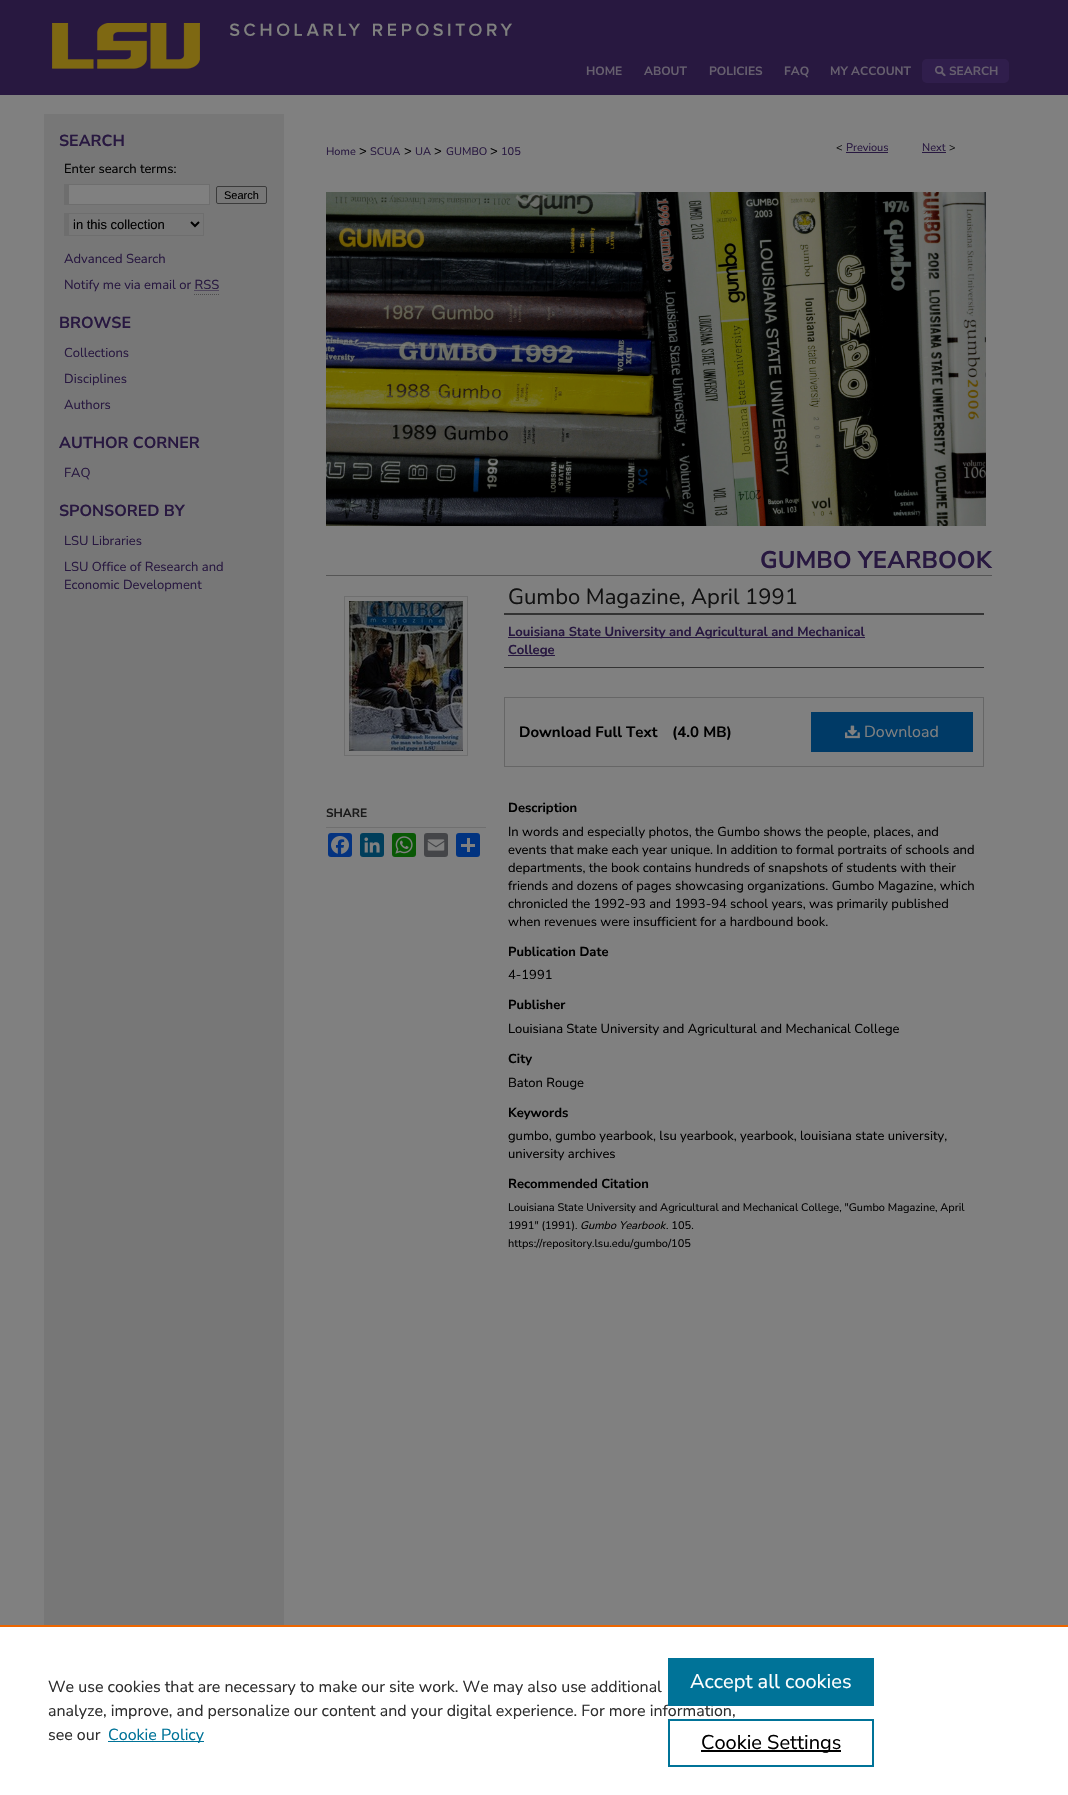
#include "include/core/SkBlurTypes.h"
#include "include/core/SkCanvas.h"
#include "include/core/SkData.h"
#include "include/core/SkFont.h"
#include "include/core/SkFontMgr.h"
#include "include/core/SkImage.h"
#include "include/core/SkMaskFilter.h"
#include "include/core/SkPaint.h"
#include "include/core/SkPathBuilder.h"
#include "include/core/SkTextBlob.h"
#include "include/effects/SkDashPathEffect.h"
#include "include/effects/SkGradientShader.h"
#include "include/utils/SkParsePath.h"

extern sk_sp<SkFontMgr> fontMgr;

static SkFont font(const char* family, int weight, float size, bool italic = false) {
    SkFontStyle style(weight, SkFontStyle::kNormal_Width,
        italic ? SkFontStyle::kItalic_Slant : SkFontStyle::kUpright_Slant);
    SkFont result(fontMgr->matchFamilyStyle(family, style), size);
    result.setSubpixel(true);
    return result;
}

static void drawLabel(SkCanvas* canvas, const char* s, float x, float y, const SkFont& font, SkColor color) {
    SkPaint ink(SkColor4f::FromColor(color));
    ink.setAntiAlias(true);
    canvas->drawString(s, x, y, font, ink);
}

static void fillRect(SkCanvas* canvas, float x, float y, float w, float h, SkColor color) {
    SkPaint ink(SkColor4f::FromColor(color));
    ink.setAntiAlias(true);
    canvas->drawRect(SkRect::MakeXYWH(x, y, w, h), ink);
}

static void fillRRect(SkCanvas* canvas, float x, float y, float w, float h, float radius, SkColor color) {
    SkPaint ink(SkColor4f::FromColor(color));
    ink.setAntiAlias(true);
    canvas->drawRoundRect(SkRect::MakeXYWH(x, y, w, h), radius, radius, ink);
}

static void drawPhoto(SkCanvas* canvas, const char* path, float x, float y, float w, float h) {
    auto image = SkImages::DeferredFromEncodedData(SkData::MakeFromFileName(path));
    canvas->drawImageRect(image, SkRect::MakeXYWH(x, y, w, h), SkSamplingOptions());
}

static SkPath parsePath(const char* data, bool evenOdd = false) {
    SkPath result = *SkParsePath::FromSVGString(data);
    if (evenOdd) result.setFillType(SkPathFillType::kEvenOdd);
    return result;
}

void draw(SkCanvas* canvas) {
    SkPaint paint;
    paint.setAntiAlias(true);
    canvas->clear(0xFF808080);
    fillRect(canvas, 0, 0, 1068, 95, 0xFF281840);
    drawPhoto(canvas, "assets/img1.png", 52, 23, 460, 46);
    SkFont font1 = font("Nunito Sans", 700, 12);
    drawLabel(canvas, "HOME", 586, 75, font1, 0xFF665F6E);
    drawLabel(canvas, "ABOUT", 644, 75, font1, 0xFF665F6E);
    drawLabel(canvas, "POLICIES", 709, 75, font1, 0xFF665F6E);
    drawLabel(canvas, "FAQ", 784, 75, font1, 0xFF665F6E);
    drawLabel(canvas, "MY ACCOUNT", 830, 75, font1, 0xFF665F6E);
    fillRRect(canvas, 922, 59, 87, 24, 5, 0xFF301E4C);
    drawPhoto(canvas, "assets/img2.png", 935, 66, 11, 11);
    drawLabel(canvas, "SEARCH", 949, 75, font1, 0xFF665F6E);
    fillRect(canvas, 44, 114, 240, 1511, 0xFF777777);
    SkFont font2 = font("Nunito Sans", 700, 16);
    drawLabel(canvas, "SEARCH", 59, 146, font2, 0xFF281840);
    SkFont font3 = font("Nunito Sans", 400, 13);
    drawLabel(canvas, "Enter search terms:", 64, 173, font3, 0xFF000000);
    fillRect(canvas, 69, 185, 140, 19, 0xFF808080);
    fillRect(canvas, 64, 184, 146, 1, 0xFF6E6E6E);
    fillRect(canvas, 209, 184, 1, 21, 0xFF6E6E6E);
    fillRect(canvas, 64, 204, 146, 1, 0xFF6E6E6E);
    fillRect(canvas, 64, 184, 5, 21, 0xFF6E6E6E);
    paint.setStroke(true);
    paint.setStrokeWidth(1);
    paint.setColor(0xFF3B3B3B);
    canvas->drawRoundRect(SkRect::MakeXYWH(216.5f, 186.5f, 50, 17), 1.5f, 1.5f, paint);
    SkFont font4 = font("Liberation Sans", 400, 11);
    drawLabel(canvas, "Search", 224, 199, font4, 0xFF000000);
    fillRect(canvas, 64, 213, 140, 1, 0xFF6E6E6E);
    fillRect(canvas, 203, 213, 1, 23, 0xFF6E6E6E);
    fillRect(canvas, 64, 235, 140, 1, 0xFF6E6E6E);
    fillRect(canvas, 64, 213, 5, 23, 0xFF6E6E6E);
    paint.setStrokeWidth(2);
    paint.setColor(0xFF000000);
    canvas->drawPath(parsePath("M191 222L195 226L199 222"), paint);
    SkFont font5 = font("Liberation Sans", 400, 13);
    drawLabel(canvas, "in this collection", 73, 229, font5, 0xFF000000);
    drawLabel(canvas, "Advanced Search", 64, 263, font3, 0xFF281840);
    drawLabel(canvas, "Notify me via email or RSS", 64, 289, font3, 0xFF281840);
    paint.setStrokeWidth(1);
    paint.setColor(0xFF281840);
    paint.setPathEffect(SkDashPathEffect::Make({{1, 1}}, 0));
    canvas->drawPath(parsePath("M194.5 290.5H219"), paint);
    paint.setPathEffect(nullptr);
    paint.setColor(0xFF4D4D4D);
    paint.setPathEffect(SkDashPathEffect::Make({{1, 1}}, 0));
    canvas->drawPath(parsePath("M194 294.5H219"), paint);
    paint.setPathEffect(nullptr);
    drawLabel(canvas, "BROWSE", 59, 328, font2, 0xFF281840);
    drawLabel(canvas, "Collections", 64, 357, font3, 0xFF281840);
    drawLabel(canvas, "Disciplines", 64, 383, font3, 0xFF281840);
    drawLabel(canvas, "Authors", 64, 409, font3, 0xFF281840);
    drawLabel(canvas, "AUTHOR CORNER", 59, 448, font2, 0xFF281840);
    drawLabel(canvas, "FAQ", 64, 477, font3, 0xFF281840);
    drawLabel(canvas, "SPONSORED BY", 59, 516, font2, 0xFF281840);
    drawLabel(canvas, "LSU Libraries", 64, 545, font3, 0xFF281840);
    drawLabel(canvas, "LSU Office of Research and", 64, 571, font3, 0xFF281840);
    drawLabel(canvas, "Economic Development", 64, 589, font3, 0xFF281840);
    SkFont font6 = font("Nunito Sans", 400, 11);
    drawLabel(canvas, "Home", 326, 155, font6, 0xFF281840);
    drawLabel(canvas, ">", 359, 155, font3, 0xFF000000);
    drawLabel(canvas, "SCUA", 370, 155, font6, 0xFF281840);
    drawLabel(canvas, ">", 404, 155, font3, 0xFF000000);
    drawLabel(canvas, "UA", 415, 155, font6, 0xFF281840);
    drawLabel(canvas, ">", 434, 155, font3, 0xFF000000);
    drawLabel(canvas, "GUMBO", 446, 155, font6, 0xFF281840);
    drawLabel(canvas, ">", 490, 155, font3, 0xFF000000);
    drawLabel(canvas, "105", 501, 155, font6, 0xFF281840);
    drawLabel(canvas, "<", 836, 151, font6, 0xFF111111);
    drawLabel(canvas, "Previous", 846, 151, font6, 0xFF281840);
    fillRect(canvas, 846, 152, 42, 1, 0xFF281840);
    drawLabel(canvas, "Next", 922, 151, font6, 0xFF281840);
    fillRect(canvas, 922, 152, 24, 1, 0xFF281840);
    drawLabel(canvas, ">", 949, 151, font6, 0xFF111111);
    drawPhoto(canvas, "assets/img3.png", 326, 192, 660, 334);
    SkFont font7 = font("Nunito Sans", 700, 24);
    drawLabel(canvas, "GUMBO YEARBOOK", 760, 568, font7, 0xFF281840);
    paint.setColor(0xFF6F6F6F);
    canvas->drawRect(SkRect::MakeXYWH(344.5f, 596.5f, 123, 159), paint);
    drawPhoto(canvas, "assets/img4.png", 349, 601, 114, 150);
    fillRect(canvas, 326, 827, 160, 1, 0xFF6F6F6F);
    drawLabel(canvas, "SHARE", 326, 817, font1, 0xFF1A1A1A);
    fillRRect(canvas, 328, 833, 24, 24, 3, 0xFF043380);
    drawPhoto(canvas, "assets/img5.png", 331, 836, 18, 18);
    fillRRect(canvas, 360, 833, 24, 24, 3, 0xFF003E5B);
    drawPhoto(canvas, "assets/img6.png", 364, 837, 16, 16);
    fillRRect(canvas, 392, 833, 24, 24, 3, 0xFF095805);
    drawPhoto(canvas, "assets/img7.png", 395, 836, 18, 18);
    fillRRect(canvas, 424, 833, 24, 24, 3, 0xFF444548);
    drawPhoto(canvas, "assets/img8.png", 427, 839, 18, 12);
    fillRRect(canvas, 456, 833, 24, 24, 3, 0xFF013380);
    fillRect(canvas, 467, 838, 3, 14, 0xFF808080);
    fillRect(canvas, 461, 844, 14, 3, 0xFF808080);
    fillRect(canvas, 326, 575, 666, 1, 0xFF555555);
    SkFont font8 = font("Nunito Sans", 400, 22);
    drawLabel(canvas, "Gumbo Magazine, April 1991", 508, 604, font8, 0xFF111111);
    fillRect(canvas, 504, 613, 480, 2, 0xFF333333);
    fillRect(canvas, 504, 667, 480, 1, 0xFF333333);
    fillRect(canvas, 508, 637, 357, 1, 0xFF281840);
    SkFont font9 = font("Nunito Sans", 700, 13);
    drawLabel(canvas, "Louisiana State University and Agricultural and Mechanical", 508, 636, font9, 0xFF281840);
    fillRect(canvas, 508, 655, 47, 1, 0xFF281840);
    drawLabel(canvas, "College", 508, 654, font9, 0xFF281840);
    paint.setColor(0xFF666666);
    canvas->drawRect(SkRect::MakeXYWH(504.5f, 697.5f, 479, 69), paint);
    SkFont font10 = font("Nunito Sans", 700, 15);
    drawLabel(canvas, "Download Full Text", 519, 737, font10, 0xFF000000);
    drawLabel(canvas, "(4.0 MB)", 672, 737, font10, 0xFF000000);
    fillRect(canvas, 811, 712, 162, 40, 0xFF003A66);
    drawPhoto(canvas, "assets/img9.png", 845, 725, 15, 14);
    SkFont font11 = font("Nunito Sans", 400, 16);
    drawLabel(canvas, "Download", 864, 737, font11, 0xFF808080);
    drawLabel(canvas, "Description", 508, 812, font9, 0xFF000000);
    drawLabel(canvas, "In words and especially photos, the Gumbo shows the people, places, and", 508, 836, font3, 0xFF000000);
    drawLabel(canvas, "events that make each year unique. In addition to formal portraits of schools and", 508, 854, font3, 0xFF000000);
    drawLabel(canvas, "departments, the book contains hundreds of snapshots of students with their", 508, 872, font3, 0xFF000000);
    drawLabel(canvas, "friends and dozens of pages showcasing organizations. Gumbo Magazine, which", 508, 890, font3, 0xFF000000);
    drawLabel(canvas, "chronicled the 1992-93 and 1993-94 school years, was primarily published", 508, 908, font3, 0xFF000000);
    drawLabel(canvas, "when revenues were insufficient for a hardbound book.", 508, 926, font3, 0xFF000000);
    drawLabel(canvas, "Publication Date", 508, 956, font9, 0xFF000000);
    drawLabel(canvas, "4-1991", 508, 979, font3, 0xFF000000);
    drawLabel(canvas, "Publisher", 508, 1009, font9, 0xFF000000);
    drawLabel(canvas, "Louisiana State University and Agricultural and Mechanical College", 508, 1033, font3, 0xFF000000);
    drawLabel(canvas, "City", 508, 1063, font9, 0xFF000000);
    drawLabel(canvas, "Baton Rouge", 508, 1087, font3, 0xFF000000);
    drawLabel(canvas, "Keywords", 508, 1117, font9, 0xFF000000);
    drawLabel(canvas, "gumbo, gumbo yearbook, lsu yearbook, yearbook, louisiana state university,", 508, 1140, font3, 0xFF000000);
    drawLabel(canvas, "university archives", 508, 1158, font3, 0xFF000000);
    drawLabel(canvas, "Recommended Citation", 508, 1188, font9, 0xFF000000);
    drawLabel(canvas, "Louisiana State University and Agricultural and Mechanical College, \"Gumbo Magazine, April", 508, 1211, font6, 0xFF000000);
    drawLabel(canvas, "1991\" (1991).", 508, 1229, font6, 0xFF000000);
    SkFont font12 = font("Nunito Sans", 400, 11, true);
    drawLabel(canvas, "Gumbo Yearbook", 580, 1229, font12, 0xFF000000);
    drawLabel(canvas, ". 105.", 666, 1229, font6, 0xFF000000);
    drawLabel(canvas, "https://repository.lsu.edu/gumbo/105", 508, 1247, font6, 0xFF000000);
    fillRect(canvas, 0, 1627, 1068, 168, 0xFFFFFFFF);
    fillRect(canvas, 0, 1625, 1068, 2, 0xFFEB6500);
    drawLabel(canvas, "We use cookies that are necessary to make our site work. We may also use additional", 48, 1692, font11, 0xFF2E2E2E);
    drawLabel(canvas, "analyze, improve, and personalize our content and your digital experience. For more information,", 48, 1716, font11, 0xFF2E2E2E);
    drawLabel(canvas, "see our", 48, 1740, font11, 0xFF2E2E2E);
    fillRect(canvas, 108, 1741, 96, 1, 0xFF007398);
    drawLabel(canvas, "Cookie Policy", 108, 1740, font11, 0xFF007398);
    fillRect(canvas, 668, 1658, 206, 48, 0xFF007398);
    SkFont font13 = font("Nunito Sans", 400, 20);
    drawLabel(canvas, "Accept all cookies", 690, 1688, font13, 0xFFFFFFFF);
    paint.setStrokeWidth(2);
    paint.setColor(0xFF007398);
    canvas->drawRect(SkRect::MakeXYWH(669, 1720, 204, 46), paint);
    fillRect(canvas, 701, 1750, 140, 2, 0xFF000000);
    drawLabel(canvas, "Cookie Settings", 701, 1749, font13, 0xFF000000);
}
